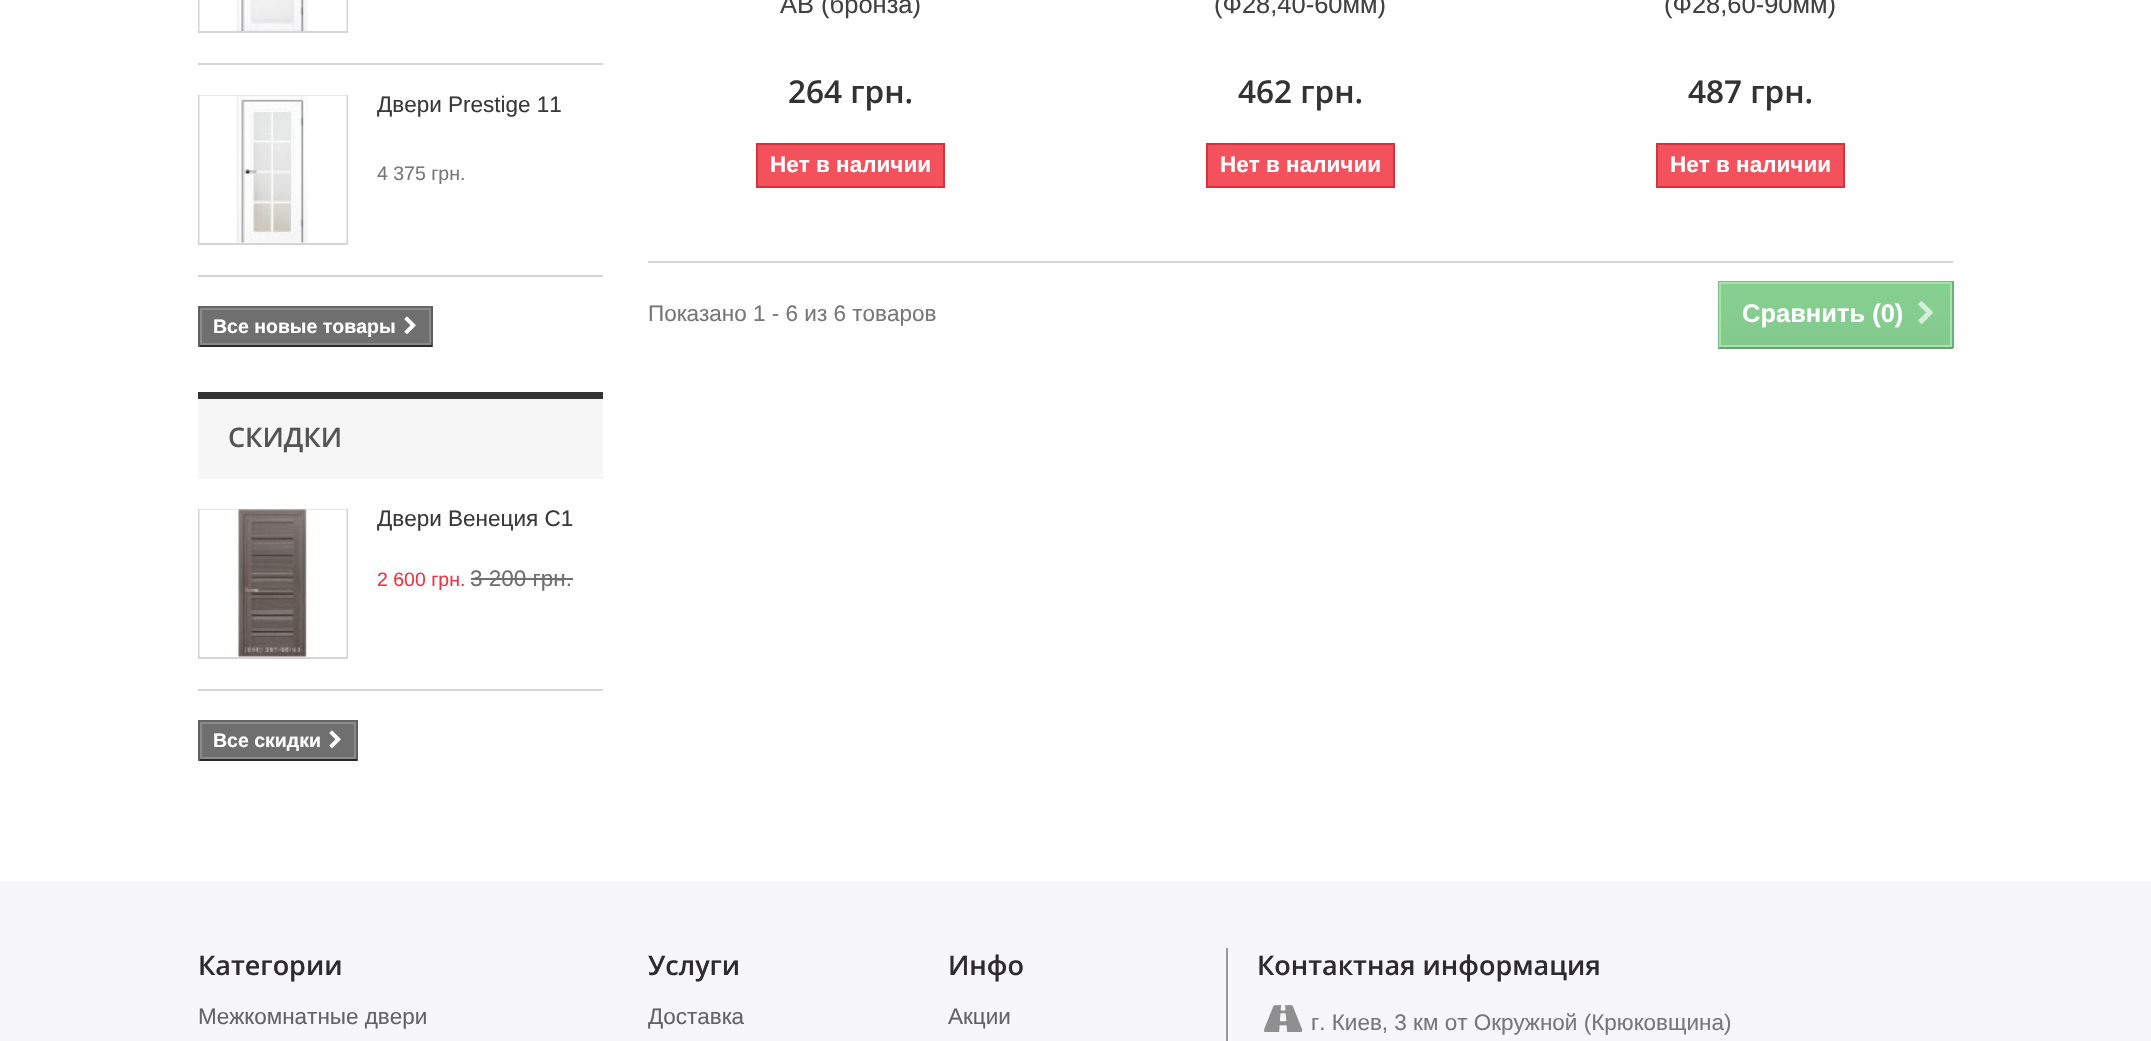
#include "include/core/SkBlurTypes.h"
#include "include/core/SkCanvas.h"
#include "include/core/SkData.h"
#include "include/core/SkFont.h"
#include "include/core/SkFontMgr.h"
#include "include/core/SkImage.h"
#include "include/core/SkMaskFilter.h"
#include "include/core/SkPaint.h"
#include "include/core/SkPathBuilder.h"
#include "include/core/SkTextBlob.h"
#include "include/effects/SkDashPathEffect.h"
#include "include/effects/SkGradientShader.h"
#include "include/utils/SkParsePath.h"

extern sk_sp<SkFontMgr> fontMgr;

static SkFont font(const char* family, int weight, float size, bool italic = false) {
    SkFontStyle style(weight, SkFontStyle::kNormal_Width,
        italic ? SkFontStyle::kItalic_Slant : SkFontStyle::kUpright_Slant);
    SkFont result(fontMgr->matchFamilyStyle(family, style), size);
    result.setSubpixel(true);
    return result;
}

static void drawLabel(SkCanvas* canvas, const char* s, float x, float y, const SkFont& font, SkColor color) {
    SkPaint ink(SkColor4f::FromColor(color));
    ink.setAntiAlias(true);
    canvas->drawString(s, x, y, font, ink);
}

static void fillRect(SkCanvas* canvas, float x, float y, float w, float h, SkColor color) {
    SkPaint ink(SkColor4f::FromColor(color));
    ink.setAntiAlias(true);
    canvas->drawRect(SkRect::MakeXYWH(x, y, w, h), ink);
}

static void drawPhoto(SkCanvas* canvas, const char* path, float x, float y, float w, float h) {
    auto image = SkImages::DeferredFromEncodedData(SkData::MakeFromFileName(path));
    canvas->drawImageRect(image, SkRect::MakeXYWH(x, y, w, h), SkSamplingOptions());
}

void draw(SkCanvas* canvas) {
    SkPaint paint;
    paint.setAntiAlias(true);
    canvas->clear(0xFFFFFFFF);
    fillRect(canvas, 198, 63, 405, 2, 0xFFD6D4D4);
    paint.setStroke(true);
    paint.setStrokeWidth(2);
    paint.setColor(0xFFD6D4D4);
    canvas->drawRect(SkRect::MakeXYWH(199, -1, 148, 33), paint);
    drawPhoto(canvas, "assets/img1.png", 199, 0, 148, 31);
    fillRect(canvas, 198, 275, 405, 2, 0xFFD6D4D4);
    canvas->drawRect(SkRect::MakeXYWH(199, 96, 148, 148), paint);
    drawPhoto(canvas, "assets/img2.png", 199, 95, 148, 148);
    canvas->save();
    canvas->clipRect(SkRect::MakeXYWH(377, 95, 226, 94));
    SkFont font1 = font("Liberation Sans", 400, 22.5f);
    drawLabel(canvas, "Двери Prestige 11", 377, 112, font1, 0xFF3A3939);
    canvas->restore();
    SkFont font2 = font("Liberation Sans", 400, 19.5f);
    drawLabel(canvas, "4 375 грн.", 377, 180, font2, 0xFF777777);
    fillRect(canvas, 198, 306, 234, 2, 0xFF666666);
    fillRect(canvas, 431, 306, 2, 41, 0xFF5F5F5F);
    fillRect(canvas, 198, 345, 234, 2, 0xFF292929);
    fillRect(canvas, 198, 306, 2, 41, 0xFF5F5F5F);
    paint.setStroke(false);
    paint.setColor(0xFF6F6F6F);
    canvas->drawRect(SkRect::MakeXYWH(201, 309, 229, 35), paint);
    paint.setStroke(true);
    paint.setColor(0xFF8B8A8A);
    canvas->drawRect(SkRect::MakeXYWH(201, 309, 229, 35), paint);
    SkFont font3 = font("Liberation Sans", 700, 19.5f);
    drawLabel(canvas, "Все новые товары", 213, 333, font3, 0xFFFFFFFF);
    drawPhoto(canvas, "assets/img3.png", 404, 316, 12, 18);
    fillRect(canvas, 198, 399, 405, 80, 0xFFF6F6F6);
    fillRect(canvas, 198, 392, 405, 7, 0xFF333333);
    SkFont font4 = font("Open Sans", 600, 27);
    drawLabel(canvas, "СКИДКИ", 228, 447, font4, 0xFF555454);
    fillRect(canvas, 198, 689, 405, 2, 0xFFD6D4D4);
    paint.setColor(0xFFD6D4D4);
    canvas->drawRect(SkRect::MakeXYWH(199, 510, 148, 148), paint);
    drawPhoto(canvas, "assets/img4.png", 199, 509, 148, 148);
    canvas->save();
    canvas->clipRect(SkRect::MakeXYWH(377, 509, 226, 87));
    drawLabel(canvas, "Двери Венеция С1", 377, 526, font1, 0xFF3A3939);
    canvas->restore();
    drawLabel(canvas, "2 600 грн.", 377, 586, font2, 0xFFF13340);
    drawLabel(canvas, "3 200 грн.", 470, 586, font1, 0xFF6F6F6F);
    fillRect(canvas, 471, 578, 102, 2, 0xFF6F6F6F);
    fillRect(canvas, 198, 720, 159, 2, 0xFF666666);
    fillRect(canvas, 356, 720, 2, 41, 0xFF5F5F5F);
    fillRect(canvas, 198, 759, 159, 2, 0xFF292929);
    fillRect(canvas, 198, 720, 2, 41, 0xFF5F5F5F);
    paint.setStroke(false);
    paint.setColor(0xFF6F6F6F);
    canvas->drawRect(SkRect::MakeXYWH(201, 723, 154, 35), paint);
    paint.setStroke(true);
    paint.setColor(0xFF8B8A8A);
    canvas->drawRect(SkRect::MakeXYWH(201, 723, 154, 35), paint);
    drawLabel(canvas, "Все скидки", 213, 747, font3, 0xFFFFFFFF);
    drawPhoto(canvas, "assets/img3.png", 329, 730, 12, 18);
    SkFont font5 = font("Liberation Sans", 400, 25.5f);
    drawLabel(canvas, "AB (бронза)", 780, 13, font5, 0xFF414141);
    SkFont font6 = font("Open Sans", 600, 31.5f);
    drawLabel(canvas, "264 грн.", 788, 103, font6, 0xFF333333);
    paint.setStroke(false);
    paint.setColor(0xFFF3515C);
    canvas->drawRect(SkRect::MakeXYWH(757, 144, 187, 43), paint);
    paint.setStroke(true);
    paint.setColor(0xFFD4323D);
    canvas->drawRect(SkRect::MakeXYWH(757, 144, 187, 43), paint);
    SkFont font7 = font("Liberation Sans", 700, 22.5f);
    drawLabel(canvas, "Нет в наличии", 770, 172, font7, 0xFFFFFFFF);
    drawLabel(canvas, "(Ф28,40-60мм)", 1214, 13, font5, 0xFF414141);
    drawLabel(canvas, "462 грн.", 1238, 103, font6, 0xFF333333);
    paint.setStroke(false);
    paint.setColor(0xFFF3515C);
    canvas->drawRect(SkRect::MakeXYWH(1207, 144, 187, 43), paint);
    paint.setStroke(true);
    paint.setColor(0xFFD4323D);
    canvas->drawRect(SkRect::MakeXYWH(1207, 144, 187, 43), paint);
    drawLabel(canvas, "Нет в наличии", 1220, 172, font7, 0xFFFFFFFF);
    drawLabel(canvas, "(Ф28,60-90мм)", 1664, 13, font5, 0xFF414141);
    drawLabel(canvas, "487 грн.", 1688, 103, font6, 0xFF333333);
    paint.setStroke(false);
    paint.setColor(0xFFF3515C);
    canvas->drawRect(SkRect::MakeXYWH(1657, 144, 187, 43), paint);
    paint.setStroke(true);
    paint.setColor(0xFFD4323D);
    canvas->drawRect(SkRect::MakeXYWH(1657, 144, 187, 43), paint);
    drawLabel(canvas, "Нет в наличии", 1670, 172, font7, 0xFFFFFFFF);
    fillRect(canvas, 648, 261, 1305, 2, 0xFFD6D4D4);
    drawLabel(canvas, "Показано 1 - 6 из 6 товаров", 648, 321, font1, 0xFF777777);
    paint.setStroke(false);
    {
        const SkColor colors[] = {0xFF85D090, 0xFF84C98F};
        const float stops[] = {0, 1};
        const SkPoint ends[] = {{1835, 282}, {1835, 347}};
        paint.setShader(SkGradientShader::MakeLinear(ends, colors, stops, 2, SkTileMode::kClamp));
        paint.setAlpha(255);
    }
    canvas->drawRect(SkRect::MakeXYWH(1721, 284, 229, 61), paint);
    fillRect(canvas, 1718, 281, 235, 1, 0xFF7EBD89);
    fillRect(canvas, 1952, 281, 2, 67, 0xFF71AC7A);
    fillRect(canvas, 1718, 347, 235, 2, 0xFF6AA073);
    fillRect(canvas, 1718, 281, 2, 67, 0xFF7EBD89);
    paint.setStroke(true);
    paint.setShader(nullptr);
    paint.setColor(0xFFA5E4A7);
    canvas->drawRect(SkRect::MakeXYWH(1720, 283, 231, 63), paint);
    SkFont font8 = font("Liberation Sans", 700, 25.5f);
    drawLabel(canvas, "Сравнить (0)", 1742, 322, font8, 0xFFFFFFFF);
    drawPhoto(canvas, "assets/img5.png", 1918, 301, 15, 23);
    fillRect(canvas, 0, 881, 2151, 160, 0xFFF7F7F9);
    drawLabel(canvas, "Категории", 198, 975, font4, 0xFF2D2B2B);
    drawLabel(canvas, "Межкомнатные двери", 198, 1024, font1, 0xFF636363);
    drawLabel(canvas, "Услуги", 648, 975, font4, 0xFF2D2B2B);
    drawLabel(canvas, "Доставка", 648, 1024, font1, 0xFF636363);
    drawLabel(canvas, "Инфо", 948, 975, font4, 0xFF2D2B2B);
    drawLabel(canvas, "Акции", 948, 1024, font1, 0xFF636363);
    fillRect(canvas, 1226, 948, 2, 93, 0xFF999999);
    drawLabel(canvas, "Контактная информация", 1257, 975, font4, 0xFF2D2B2B);
    drawPhoto(canvas, "assets/img6.png", 1264, 1005, 39, 27);
    drawLabel(canvas, "г. Киев, 3 км от Окружной (Крюковщина)", 1311, 1030, font1, 0xFF777777);
}
